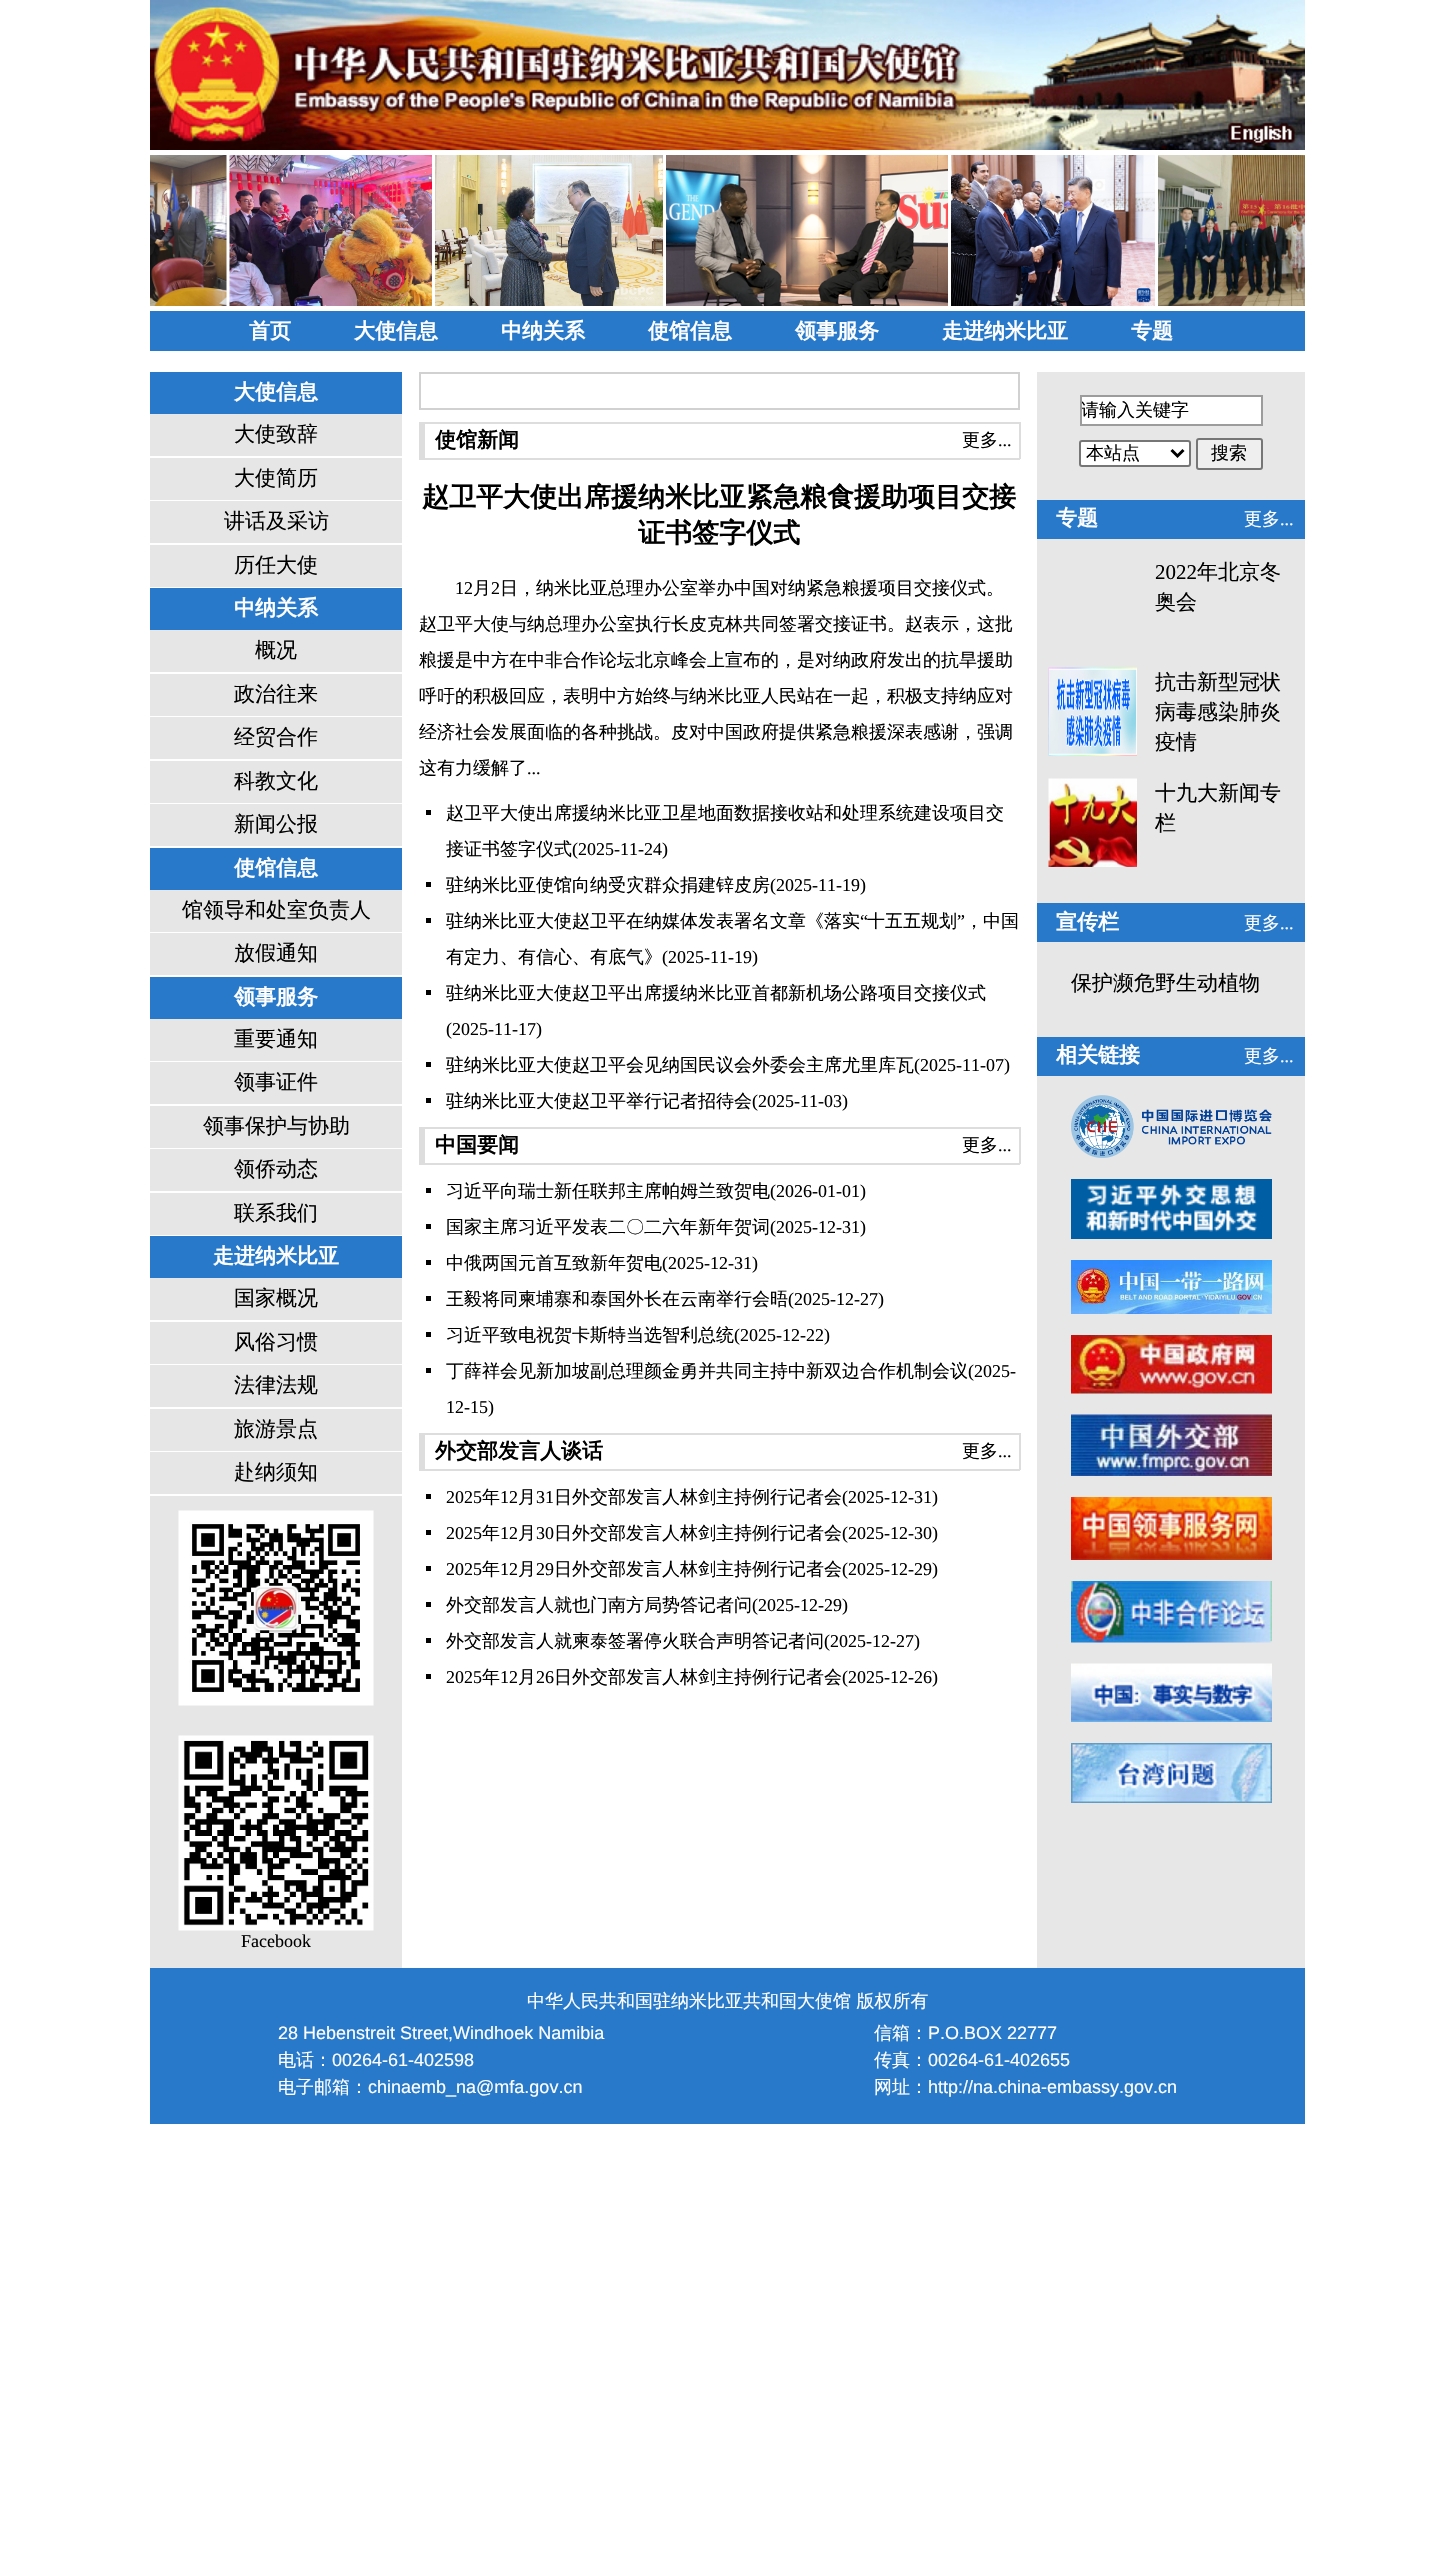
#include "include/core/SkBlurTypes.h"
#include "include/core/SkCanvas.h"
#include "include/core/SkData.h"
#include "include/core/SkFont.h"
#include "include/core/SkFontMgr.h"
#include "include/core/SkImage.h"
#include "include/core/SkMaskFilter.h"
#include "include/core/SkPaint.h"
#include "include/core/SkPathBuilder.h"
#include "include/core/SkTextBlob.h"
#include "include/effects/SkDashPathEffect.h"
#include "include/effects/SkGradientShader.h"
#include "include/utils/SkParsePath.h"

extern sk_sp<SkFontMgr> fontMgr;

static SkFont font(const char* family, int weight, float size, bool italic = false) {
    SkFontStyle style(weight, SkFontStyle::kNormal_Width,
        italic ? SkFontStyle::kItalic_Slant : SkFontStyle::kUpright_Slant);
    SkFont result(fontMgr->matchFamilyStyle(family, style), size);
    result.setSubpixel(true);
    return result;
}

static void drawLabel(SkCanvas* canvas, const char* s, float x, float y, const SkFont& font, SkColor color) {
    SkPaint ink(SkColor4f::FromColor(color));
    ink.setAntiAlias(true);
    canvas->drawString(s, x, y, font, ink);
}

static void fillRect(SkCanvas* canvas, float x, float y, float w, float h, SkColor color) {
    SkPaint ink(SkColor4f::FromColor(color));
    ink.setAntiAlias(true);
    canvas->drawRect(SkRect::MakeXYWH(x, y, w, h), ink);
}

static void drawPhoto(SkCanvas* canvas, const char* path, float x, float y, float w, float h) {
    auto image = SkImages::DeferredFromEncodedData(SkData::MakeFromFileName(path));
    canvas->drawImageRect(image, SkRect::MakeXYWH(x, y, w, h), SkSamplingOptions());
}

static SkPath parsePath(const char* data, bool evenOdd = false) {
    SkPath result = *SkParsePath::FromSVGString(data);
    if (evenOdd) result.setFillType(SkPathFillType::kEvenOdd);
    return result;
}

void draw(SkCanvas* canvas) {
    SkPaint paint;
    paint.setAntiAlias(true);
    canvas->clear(0xFFFFFFFF);
    drawPhoto(canvas, "assets/img1.png", 150, 0, 1155, 150);
    drawPhoto(canvas, "assets/img2.png", 150, 155, 1155, 151);
    fillRect(canvas, 150, 311, 1155, 40, 0xFF2879CA);
    SkFont font1 = font("WenQuanYi Zen Hei", 700, 21);
    drawLabel(canvas, "首页", 249, 338, font1, 0xFFFFFFFF);
    drawLabel(canvas, "大使信息", 354, 338, font1, 0xFFFFFFFF);
    drawLabel(canvas, "中纳关系", 501, 338, font1, 0xFFFFFFFF);
    drawLabel(canvas, "使馆信息", 648, 338, font1, 0xFFFFFFFF);
    drawLabel(canvas, "领事服务", 795, 338, font1, 0xFFFFFFFF);
    drawLabel(canvas, "走进纳米比亚", 942, 338, font1, 0xFFFFFFFF);
    drawLabel(canvas, "专题", 1131, 338, font1, 0xFFFFFFFF);
    fillRect(canvas, 150, 414, 252, 1554, 0xFFE6E6E6);
    fillRect(canvas, 150, 372, 252, 42, 0xFF2879CA);
    drawLabel(canvas, "大使信息", 234, 399, font1, 0xFFFFFFFF);
    fillRect(canvas, 150, 456, 252, 2, 0xFFFFFFFF);
    SkFont font2 = font("WenQuanYi Zen Hei", 500, 21);
    drawLabel(canvas, "大使致辞", 234, 441, font2, 0xFF000000);
    fillRect(canvas, 150, 500, 252, 1, 0xFFFFFFFF);
    drawLabel(canvas, "大使简历", 234, 485, font2, 0xFF000000);
    fillRect(canvas, 150, 543, 252, 2, 0xFFFFFFFF);
    drawLabel(canvas, "讲话及采访", 224, 528, font2, 0xFF000000);
    fillRect(canvas, 150, 587, 252, 1, 0xFFFFFFFF);
    drawLabel(canvas, "历任大使", 234, 572, font2, 0xFF000000);
    fillRect(canvas, 150, 588, 252, 42, 0xFF2879CA);
    drawLabel(canvas, "中纳关系", 234, 615, font1, 0xFFFFFFFF);
    fillRect(canvas, 150, 672, 252, 2, 0xFFFFFFFF);
    drawLabel(canvas, "概况", 255, 657, font2, 0xFF000000);
    fillRect(canvas, 150, 716, 252, 1, 0xFFFFFFFF);
    drawLabel(canvas, "政治往来", 234, 701, font2, 0xFF000000);
    fillRect(canvas, 150, 759, 252, 2, 0xFFFFFFFF);
    drawLabel(canvas, "经贸合作", 234, 744, font2, 0xFF000000);
    fillRect(canvas, 150, 803, 252, 1, 0xFFFFFFFF);
    drawLabel(canvas, "科教文化", 234, 788, font2, 0xFF000000);
    fillRect(canvas, 150, 846, 252, 2, 0xFFFFFFFF);
    drawLabel(canvas, "新闻公报", 234, 831, font2, 0xFF000000);
    fillRect(canvas, 150, 848, 252, 42, 0xFF2879CA);
    drawLabel(canvas, "使馆信息", 234, 875, font1, 0xFFFFFFFF);
    fillRect(canvas, 150, 932, 252, 1, 0xFFFFFFFF);
    drawLabel(canvas, "馆领导和处室负责人", 182, 917, font2, 0xFF000000);
    fillRect(canvas, 150, 975, 252, 2, 0xFFFFFFFF);
    drawLabel(canvas, "放假通知", 234, 960, font2, 0xFF000000);
    fillRect(canvas, 150, 977, 252, 42, 0xFF2879CA);
    drawLabel(canvas, "领事服务", 234, 1004, font1, 0xFFFFFFFF);
    fillRect(canvas, 150, 1061, 252, 1, 0xFFFFFFFF);
    drawLabel(canvas, "重要通知", 234, 1046, font2, 0xFF000000);
    fillRect(canvas, 150, 1104, 252, 2, 0xFFFFFFFF);
    drawLabel(canvas, "领事证件", 234, 1089, font2, 0xFF000000);
    fillRect(canvas, 150, 1148, 252, 1, 0xFFFFFFFF);
    drawLabel(canvas, "领事保护与协助", 203, 1133, font2, 0xFF000000);
    fillRect(canvas, 150, 1191, 252, 2, 0xFFFFFFFF);
    drawLabel(canvas, "领侨动态", 234, 1176, font2, 0xFF000000);
    fillRect(canvas, 150, 1235, 252, 1, 0xFFFFFFFF);
    drawLabel(canvas, "联系我们", 234, 1220, font2, 0xFF000000);
    fillRect(canvas, 150, 1236, 252, 42, 0xFF2879CA);
    drawLabel(canvas, "走进纳米比亚", 213, 1263, font1, 0xFFFFFFFF);
    fillRect(canvas, 150, 1320, 252, 2, 0xFFFFFFFF);
    drawLabel(canvas, "国家概况", 234, 1305, font2, 0xFF000000);
    fillRect(canvas, 150, 1364, 252, 1, 0xFFFFFFFF);
    drawLabel(canvas, "风俗习惯", 234, 1349, font2, 0xFF000000);
    fillRect(canvas, 150, 1407, 252, 2, 0xFFFFFFFF);
    drawLabel(canvas, "法律法规", 234, 1392, font2, 0xFF000000);
    fillRect(canvas, 150, 1451, 252, 1, 0xFFFFFFFF);
    drawLabel(canvas, "旅游景点", 234, 1436, font2, 0xFF000000);
    fillRect(canvas, 150, 1494, 252, 2, 0xFFFFFFFF);
    drawLabel(canvas, "赴纳须知", 234, 1479, font2, 0xFF000000);
    drawPhoto(canvas, "assets/img3.png", 178, 1510, 196, 196);
    drawPhoto(canvas, "assets/img4.png", 178, 1735, 196, 196);
    SkFont font3 = font("Liberation Serif", 400, 18);
    drawLabel(canvas, "Facebook", 241, 1947, font3, 0xFF000000);
    paint.setStroke(true);
    paint.setStrokeWidth(2);
    paint.setColor(0xFFD1D1D1);
    canvas->drawRect(SkRect::MakeXYWH(420, 373, 599, 36), paint);
    fillRect(canvas, 419, 422, 601, 2, 0xFFDDDDDD);
    fillRect(canvas, 1019, 422, 2, 37, 0xFFDDDDDD);
    fillRect(canvas, 419, 458, 601, 2, 0xFFDDDDDD);
    fillRect(canvas, 419, 422, 6, 37, 0xFFDDDDDD);
    drawLabel(canvas, "使馆新闻", 435, 447, font1, 0xFF000000);
    SkFont font4 = font("WenQuanYi Zen Hei", 500, 18);
    drawLabel(canvas, "更多", 962, 446, font4, 0xFF000000);
    drawLabel(canvas, "...", 998, 446, font3, 0xFF000000);
    SkFont font5 = font("WenQuanYi Zen Hei", 700, 27);
    drawLabel(canvas, "赵卫平大使出席援纳米比亚紧急粮食援助项目交接", 422, 506, font5, 0xFF000000);
    drawLabel(canvas, "证书签字仪式", 638, 542, font5, 0xFF000000);
    drawLabel(canvas, "12", 455, 594, font3, 0xFF000000);
    drawLabel(canvas, "月", 473, 594, font4, 0xFF000000);
    drawLabel(canvas, "2", 491, 594, font3, 0xFF000000);
    drawLabel(canvas, "日，纳米比亚总理办公室举办中国对纳紧急粮援项目交接仪式。", 500, 594, font4, 0xFF000000);
    drawLabel(canvas, "赵卫平大使与纳总理办公室执行长皮克林共同签署交接证书。赵表示，这批", 419, 630, font4, 0xFF000000);
    drawLabel(canvas, "粮援是中方在中非合作论坛北京峰会上宣布的，是对纳政府发出的抗旱援助", 419, 666, font4, 0xFF000000);
    drawLabel(canvas, "呼吁的积极回应，表明中方始终与纳米比亚人民站在一起，积极支持纳应对", 419, 702, font4, 0xFF000000);
    drawLabel(canvas, "经济社会发展面临的各种挑战。皮对中国政府提供紧急粮援深表感谢，强调", 419, 738, font4, 0xFF000000);
    drawLabel(canvas, "这有力缓解了", 419, 774, font4, 0xFF000000);
    drawLabel(canvas, "...", 527, 774, font3, 0xFF000000);
    fillRect(canvas, 426, 810, 5, 5, 0xFF010101);
    drawLabel(canvas, "赵卫平大使出席援纳米比亚卫星地面数据接收站和处理系统建设项目交", 446, 819, font4, 0xFF000000);
    drawLabel(canvas, "接证书签字仪式", 446, 855, font4, 0xFF000000);
    drawLabel(canvas, "(2025-11-24)", 572, 855, font3, 0xFF000000);
    fillRect(canvas, 426, 882, 5, 5, 0xFF010101);
    drawLabel(canvas, "驻纳米比亚使馆向纳受灾群众捐建锌皮房", 446, 891, font4, 0xFF000000);
    drawLabel(canvas, "(2025-11-19)", 770, 891, font3, 0xFF000000);
    fillRect(canvas, 426, 918, 5, 5, 0xFF010101);
    drawLabel(canvas, "驻纳米比亚大使赵卫平在纳媒体发表署名文章《落实", 446, 927, font4, 0xFF000000);
    drawLabel(canvas, "“", 860, 927, font3, 0xFF000000);
    drawLabel(canvas, "十五五规划", 867, 927, font4, 0xFF000000);
    drawLabel(canvas, "”", 957, 927, font3, 0xFF000000);
    drawLabel(canvas, "，中国", 965, 927, font4, 0xFF000000);
    drawLabel(canvas, "有定力、有信心、有底气》", 446, 963, font4, 0xFF000000);
    drawLabel(canvas, "(2025-11-19)", 662, 963, font3, 0xFF000000);
    fillRect(canvas, 426, 990, 5, 5, 0xFF010101);
    drawLabel(canvas, "驻纳米比亚大使赵卫平出席援纳米比亚首都新机场公路项目交接仪式", 446, 999, font4, 0xFF000000);
    drawLabel(canvas, "(2025-11-17)", 446, 1035, font3, 0xFF000000);
    fillRect(canvas, 426, 1062, 5, 5, 0xFF010101);
    drawLabel(canvas, "驻纳米比亚大使赵卫平会见纳国民议会外委会主席尤里库瓦", 446, 1071, font4, 0xFF000000);
    drawLabel(canvas, "(2025-11-07)", 914, 1071, font3, 0xFF000000);
    fillRect(canvas, 426, 1098, 5, 5, 0xFF010101);
    drawLabel(canvas, "驻纳米比亚大使赵卫平举行记者招待会", 446, 1107, font4, 0xFF000000);
    drawLabel(canvas, "(2025-11-03)", 752, 1107, font3, 0xFF000000);
    fillRect(canvas, 419, 1127, 601, 2, 0xFFDDDDDD);
    fillRect(canvas, 1019, 1127, 2, 37, 0xFFDDDDDD);
    fillRect(canvas, 419, 1163, 601, 2, 0xFFDDDDDD);
    fillRect(canvas, 419, 1127, 6, 37, 0xFFDDDDDD);
    drawLabel(canvas, "中国要闻", 435, 1152, font1, 0xFF000000);
    drawLabel(canvas, "更多", 962, 1151, font4, 0xFF000000);
    drawLabel(canvas, "...", 998, 1151, font3, 0xFF000000);
    fillRect(canvas, 426, 1188, 5, 5, 0xFF010101);
    drawLabel(canvas, "习近平向瑞士新任联邦主席帕姆兰致贺电", 446, 1197, font4, 0xFF000000);
    drawLabel(canvas, "(2026-01-01)", 770, 1197, font3, 0xFF000000);
    fillRect(canvas, 426, 1224, 5, 5, 0xFF010101);
    drawLabel(canvas, "国家主席习近平发表二〇二六年新年贺词", 446, 1233, font4, 0xFF000000);
    drawLabel(canvas, "(2025-12-31)", 770, 1233, font3, 0xFF000000);
    fillRect(canvas, 426, 1260, 5, 5, 0xFF010101);
    drawLabel(canvas, "中俄两国元首互致新年贺电", 446, 1269, font4, 0xFF000000);
    drawLabel(canvas, "(2025-12-31)", 662, 1269, font3, 0xFF000000);
    fillRect(canvas, 426, 1296, 5, 5, 0xFF010101);
    drawLabel(canvas, "王毅将同柬埔寨和泰国外长在云南举行会晤", 446, 1305, font4, 0xFF000000);
    drawLabel(canvas, "(2025-12-27)", 788, 1305, font3, 0xFF000000);
    fillRect(canvas, 426, 1332, 5, 5, 0xFF010101);
    drawLabel(canvas, "习近平致电祝贺卡斯特当选智利总统", 446, 1341, font4, 0xFF000000);
    drawLabel(canvas, "(2025-12-22)", 734, 1341, font3, 0xFF000000);
    fillRect(canvas, 426, 1368, 5, 5, 0xFF010101);
    drawLabel(canvas, "丁薛祥会见新加坡副总理颜金勇并共同主持中新双边合作机制会议", 446, 1377, font4, 0xFF000000);
    drawLabel(canvas, "(2025-", 968, 1377, font3, 0xFF000000);
    drawLabel(canvas, "12-15)", 446, 1413, font3, 0xFF000000);
    fillRect(canvas, 419, 1433, 601, 2, 0xFFDDDDDD);
    fillRect(canvas, 1019, 1433, 2, 37, 0xFFDDDDDD);
    fillRect(canvas, 419, 1469, 601, 2, 0xFFDDDDDD);
    fillRect(canvas, 419, 1433, 6, 37, 0xFFDDDDDD);
    drawLabel(canvas, "外交部发言人谈话", 435, 1458, font1, 0xFF000000);
    drawLabel(canvas, "更多", 962, 1457, font4, 0xFF000000);
    drawLabel(canvas, "...", 998, 1457, font3, 0xFF000000);
    fillRect(canvas, 426, 1494, 5, 5, 0xFF010101);
    drawLabel(canvas, "2025", 446, 1503, font3, 0xFF000000);
    drawLabel(canvas, "年", 482, 1503, font4, 0xFF000000);
    drawLabel(canvas, "12", 500, 1503, font3, 0xFF000000);
    drawLabel(canvas, "月", 518, 1503, font4, 0xFF000000);
    drawLabel(canvas, "31", 536, 1503, font3, 0xFF000000);
    drawLabel(canvas, "日外交部发言人林剑主持例行记者会", 554, 1503, font4, 0xFF000000);
    drawLabel(canvas, "(2025-12-31)", 842, 1503, font3, 0xFF000000);
    fillRect(canvas, 426, 1530, 5, 5, 0xFF010101);
    drawLabel(canvas, "2025", 446, 1539, font3, 0xFF000000);
    drawLabel(canvas, "年", 482, 1539, font4, 0xFF000000);
    drawLabel(canvas, "12", 500, 1539, font3, 0xFF000000);
    drawLabel(canvas, "月", 518, 1539, font4, 0xFF000000);
    drawLabel(canvas, "30", 536, 1539, font3, 0xFF000000);
    drawLabel(canvas, "日外交部发言人林剑主持例行记者会", 554, 1539, font4, 0xFF000000);
    drawLabel(canvas, "(2025-12-30)", 842, 1539, font3, 0xFF000000);
    fillRect(canvas, 426, 1566, 5, 5, 0xFF010101);
    drawLabel(canvas, "2025", 446, 1575, font3, 0xFF000000);
    drawLabel(canvas, "年", 482, 1575, font4, 0xFF000000);
    drawLabel(canvas, "12", 500, 1575, font3, 0xFF000000);
    drawLabel(canvas, "月", 518, 1575, font4, 0xFF000000);
    drawLabel(canvas, "29", 536, 1575, font3, 0xFF000000);
    drawLabel(canvas, "日外交部发言人林剑主持例行记者会", 554, 1575, font4, 0xFF000000);
    drawLabel(canvas, "(2025-12-29)", 842, 1575, font3, 0xFF000000);
    fillRect(canvas, 426, 1602, 5, 5, 0xFF010101);
    drawLabel(canvas, "外交部发言人就也门南方局势答记者问", 446, 1611, font4, 0xFF000000);
    drawLabel(canvas, "(2025-12-29)", 752, 1611, font3, 0xFF000000);
    fillRect(canvas, 426, 1638, 5, 5, 0xFF010101);
    drawLabel(canvas, "外交部发言人就柬泰签署停火联合声明答记者问", 446, 1647, font4, 0xFF000000);
    drawLabel(canvas, "(2025-12-27)", 824, 1647, font3, 0xFF000000);
    fillRect(canvas, 426, 1674, 5, 5, 0xFF010101);
    drawLabel(canvas, "2025", 446, 1683, font3, 0xFF000000);
    drawLabel(canvas, "年", 482, 1683, font4, 0xFF000000);
    drawLabel(canvas, "12", 500, 1683, font3, 0xFF000000);
    drawLabel(canvas, "月", 518, 1683, font4, 0xFF000000);
    drawLabel(canvas, "26", 536, 1683, font3, 0xFF000000);
    drawLabel(canvas, "日外交部发言人林剑主持例行记者会", 554, 1683, font4, 0xFF000000);
    drawLabel(canvas, "(2025-12-26)", 842, 1683, font3, 0xFF000000);
    fillRect(canvas, 1037, 372, 268, 1596, 0xFFE7E7E7);
    paint.setStroke(false);
    paint.setColor(0xFFFFFFFF);
    canvas->drawRect(SkRect::MakeXYWH(1081, 396, 181, 29), paint);
    paint.setStroke(true);
    paint.setColor(0xFF9C9C9C);
    canvas->drawRect(SkRect::MakeXYWH(1081, 396, 181, 29), paint);
    canvas->save();
    canvas->clipRect(SkRect::MakeXYWH(1082, 396, 180, 29));
    drawLabel(canvas, "请输入关键字", 1081, 416, font4, 0xFF000000);
    canvas->restore();
    paint.setStroke(false);
    paint.setColor(0xFFFFFFFF);
    canvas->drawRoundRect(SkRect::MakeXYWH(1080, 441, 110, 25), 2, 2, paint);
    paint.setStroke(true);
    paint.setColor(0xFF767676);
    canvas->drawRoundRect(SkRect::MakeXYWH(1080, 441, 110, 25), 2, 2, paint);
    paint.setStrokeWidth(3);
    paint.setColor(0xFF000000);
    canvas->drawPath(parsePath("M1171.5 450L1177.5 456L1183.5 450"), paint);
    drawLabel(canvas, "本站点", 1086, 459, font4, 0xFF000000);
    paint.setStroke(false);
    paint.setColor(0xFFEFEFEF);
    canvas->drawRoundRect(SkRect::MakeXYWH(1197, 439, 65, 30), 2, 2, paint);
    paint.setStroke(true);
    paint.setStrokeWidth(2);
    paint.setColor(0xFF767676);
    canvas->drawRoundRect(SkRect::MakeXYWH(1197, 439, 65, 30), 2, 2, paint);
    drawLabel(canvas, "搜索", 1211, 459, font4, 0xFF000000);
    fillRect(canvas, 1037, 500, 268, 39, 0xFF2879CA);
    drawLabel(canvas, "专题", 1056, 525, font1, 0xFFFFFFFF);
    drawLabel(canvas, "更多", 1244, 525, font4, 0xFFFFFFFF);
    drawLabel(canvas, "...", 1280, 525, font3, 0xFFFFFFFF);
    SkFont font6 = font("Liberation Serif", 400, 21);
    drawLabel(canvas, "2022", 1155, 579, font6, 0xFF000000);
    drawLabel(canvas, "年北京冬", 1197, 579, font2, 0xFF000000);
    drawLabel(canvas, "奥会", 1155, 609, font2, 0xFF000000);
    drawPhoto(canvas, "assets/img5.png", 1048, 667, 89, 89);
    drawLabel(canvas, "抗击新型冠状", 1155, 689, font2, 0xFF000000);
    drawLabel(canvas, "病毒感染肺炎", 1155, 719, font2, 0xFF000000);
    drawLabel(canvas, "疫情", 1155, 749, font2, 0xFF000000);
    drawPhoto(canvas, "assets/img6.png", 1048, 778, 89, 89);
    drawLabel(canvas, "十九大新闻专", 1155, 800, font2, 0xFF000000);
    drawLabel(canvas, "栏", 1155, 830, font2, 0xFF000000);
    fillRect(canvas, 1037, 903, 268, 39, 0xFF2879CA);
    drawLabel(canvas, "宣传栏", 1056, 929, font1, 0xFFFFFFFF);
    drawLabel(canvas, "更多", 1244, 929, font4, 0xFFFFFFFF);
    drawLabel(canvas, "...", 1280, 929, font3, 0xFFFFFFFF);
    drawLabel(canvas, "保护濒危野生动植物", 1071, 990, font2, 0xFF000000);
    fillRect(canvas, 1037, 1037, 268, 39, 0xFF2879CA);
    drawLabel(canvas, "相关链接", 1056, 1062, font1, 0xFFFFFFFF);
    drawLabel(canvas, "更多", 1244, 1062, font4, 0xFFFFFFFF);
    drawLabel(canvas, "...", 1280, 1062, font3, 0xFFFFFFFF);
    drawPhoto(canvas, "assets/img7.png", 1071, 1095, 201, 63);
    drawPhoto(canvas, "assets/img8.png", 1071, 1179, 201, 60);
    drawPhoto(canvas, "assets/img9.png", 1071, 1260, 201, 54);
    drawPhoto(canvas, "assets/img10.png", 1071, 1335, 201, 59);
    drawPhoto(canvas, "assets/img11.png", 1071, 1414, 201, 62);
    drawPhoto(canvas, "assets/img12.png", 1071, 1497, 201, 63);
    drawPhoto(canvas, "assets/img13.png", 1071, 1581, 201, 62);
    drawPhoto(canvas, "assets/img14.png", 1071, 1663, 201, 59);
    drawPhoto(canvas, "assets/img15.png", 1071, 1743, 201, 60);
    fillRect(canvas, 150, 1968, 1155, 156, 0xFF2879CA);
    drawLabel(canvas, "中华人民共和国驻纳米比亚共和国大使馆 版权所有", 527, 2007, font4, 0xFFFFFFFF);
    SkFont font7 = font("Liberation Sans", 400, 18);
    drawLabel(canvas, "28 Hebenstreit Street,Windhoek Namibia", 278, 2039, font7, 0xFFFFFFFF);
    drawLabel(canvas, "电话：", 278, 2066, font4, 0xFFFFFFFF);
    drawLabel(canvas, "00264-61-402598", 332, 2066, font7, 0xFFFFFFFF);
    drawLabel(canvas, "电子邮箱：", 278, 2093, font4, 0xFFFFFFFF);
    drawLabel(canvas, "chinaemb_na@mfa.gov.cn", 368, 2093, font7, 0xFFFFFFFF);
    drawLabel(canvas, "信箱：", 874, 2039, font4, 0xFFFFFFFF);
    drawLabel(canvas, "P.O.BOX 22777", 928, 2039, font7, 0xFFFFFFFF);
    drawLabel(canvas, "传真：", 874, 2066, font4, 0xFFFFFFFF);
    drawLabel(canvas, "00264-61-402655", 928, 2066, font7, 0xFFFFFFFF);
    drawLabel(canvas, "网址：", 874, 2093, font4, 0xFFFFFFFF);
    drawLabel(canvas, "http://na.china-embassy.gov.cn", 928, 2093, font7, 0xFFFFFFFF);
}
